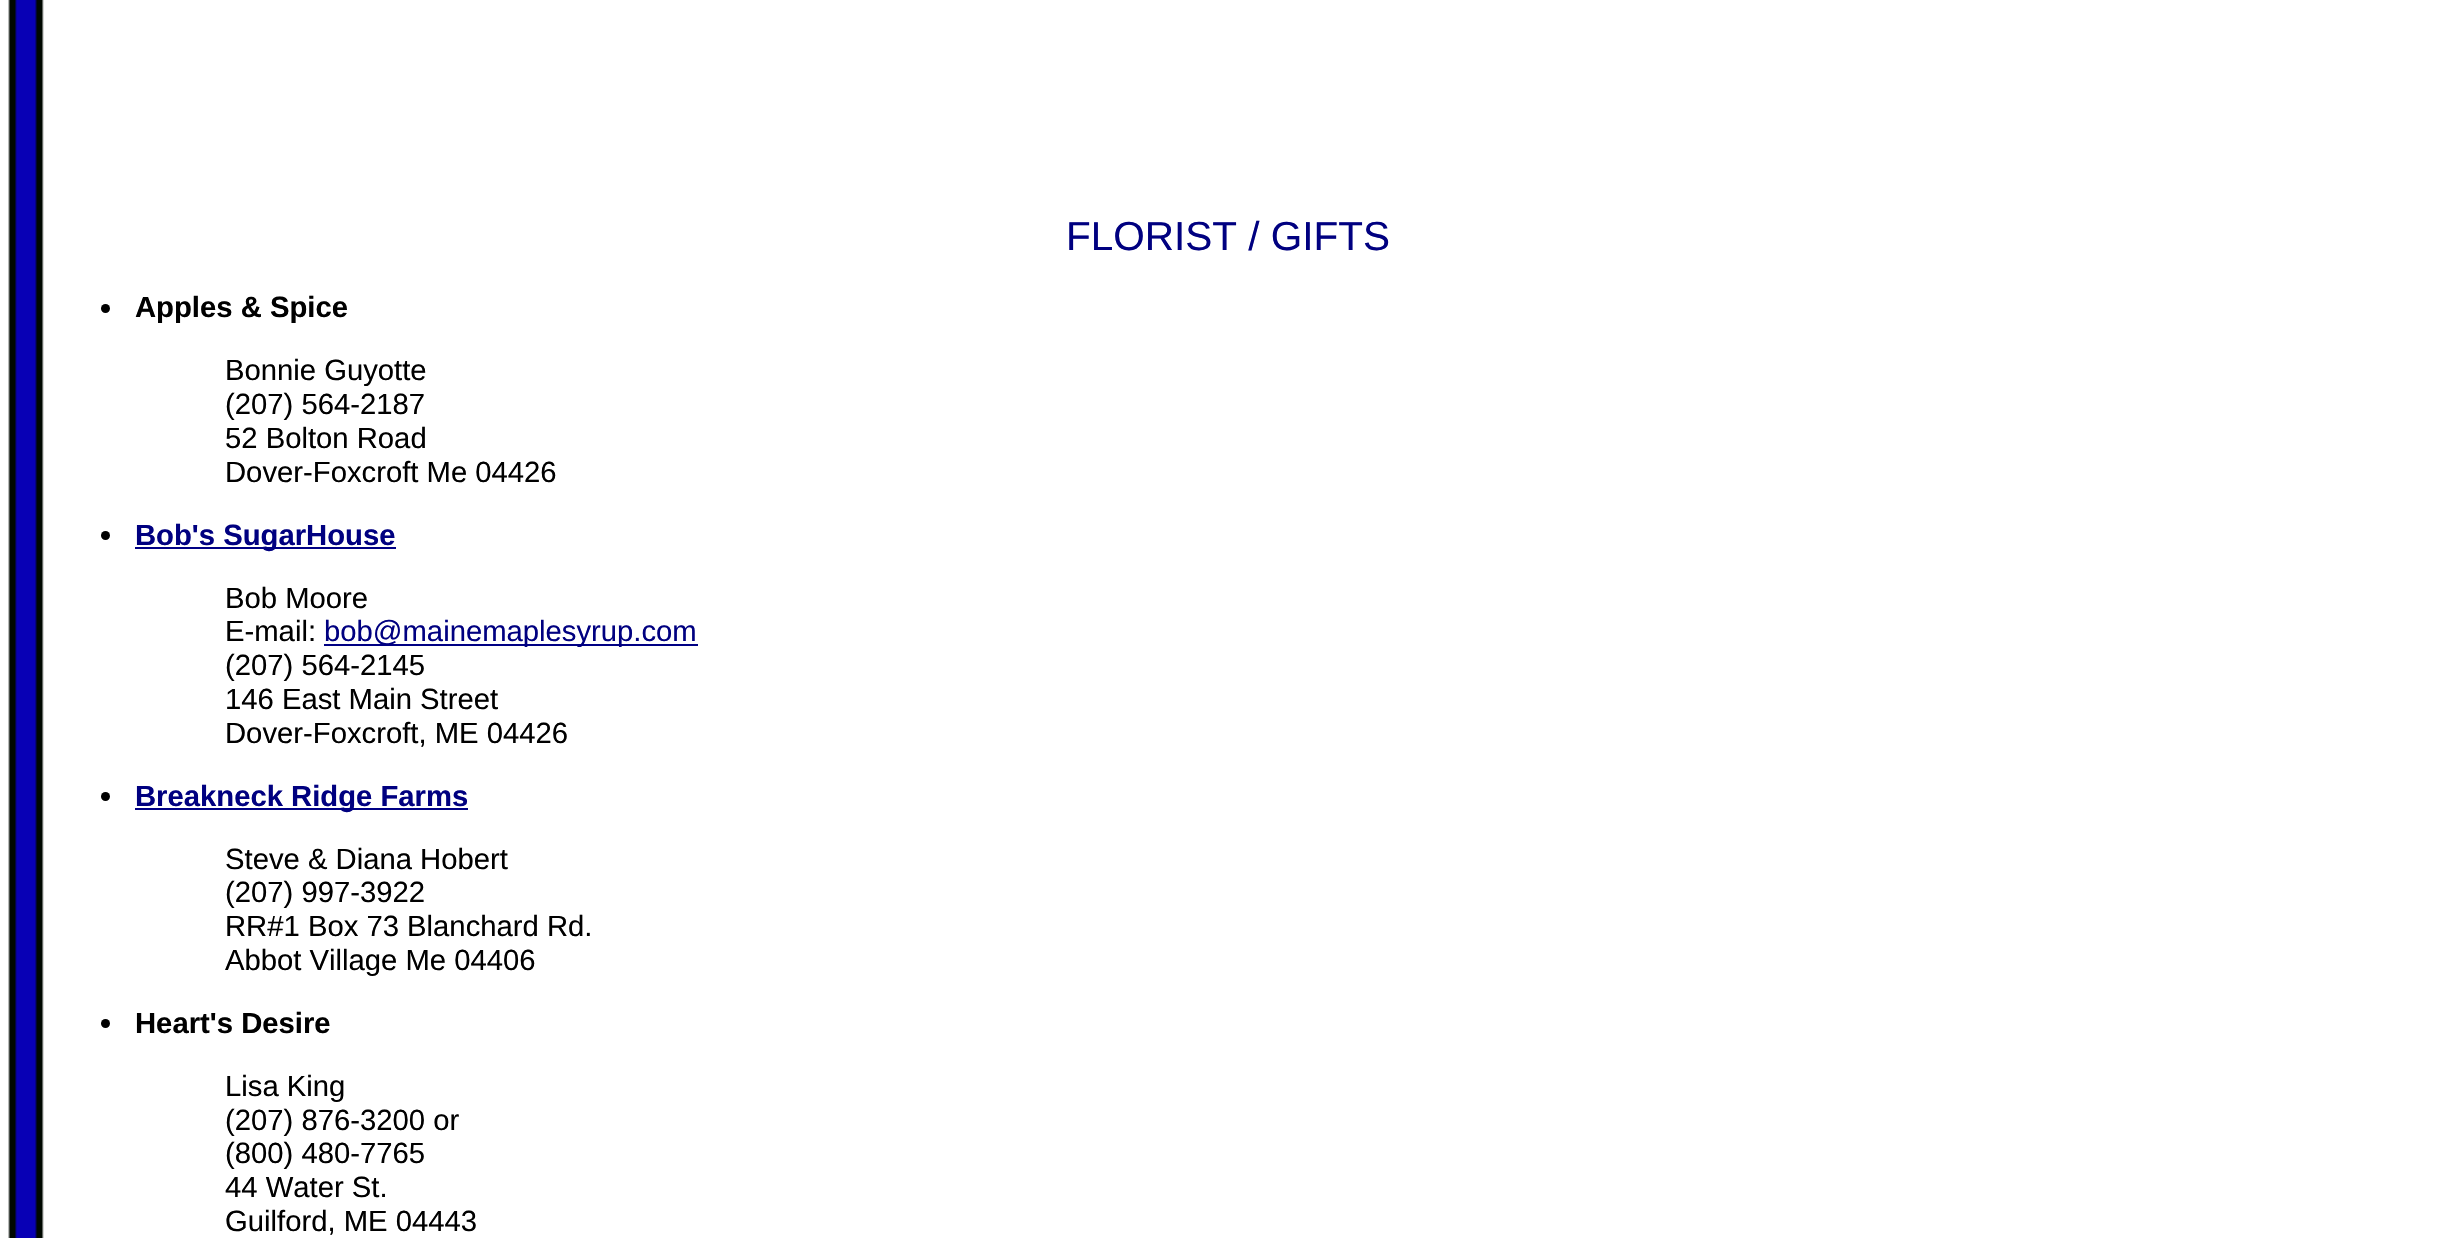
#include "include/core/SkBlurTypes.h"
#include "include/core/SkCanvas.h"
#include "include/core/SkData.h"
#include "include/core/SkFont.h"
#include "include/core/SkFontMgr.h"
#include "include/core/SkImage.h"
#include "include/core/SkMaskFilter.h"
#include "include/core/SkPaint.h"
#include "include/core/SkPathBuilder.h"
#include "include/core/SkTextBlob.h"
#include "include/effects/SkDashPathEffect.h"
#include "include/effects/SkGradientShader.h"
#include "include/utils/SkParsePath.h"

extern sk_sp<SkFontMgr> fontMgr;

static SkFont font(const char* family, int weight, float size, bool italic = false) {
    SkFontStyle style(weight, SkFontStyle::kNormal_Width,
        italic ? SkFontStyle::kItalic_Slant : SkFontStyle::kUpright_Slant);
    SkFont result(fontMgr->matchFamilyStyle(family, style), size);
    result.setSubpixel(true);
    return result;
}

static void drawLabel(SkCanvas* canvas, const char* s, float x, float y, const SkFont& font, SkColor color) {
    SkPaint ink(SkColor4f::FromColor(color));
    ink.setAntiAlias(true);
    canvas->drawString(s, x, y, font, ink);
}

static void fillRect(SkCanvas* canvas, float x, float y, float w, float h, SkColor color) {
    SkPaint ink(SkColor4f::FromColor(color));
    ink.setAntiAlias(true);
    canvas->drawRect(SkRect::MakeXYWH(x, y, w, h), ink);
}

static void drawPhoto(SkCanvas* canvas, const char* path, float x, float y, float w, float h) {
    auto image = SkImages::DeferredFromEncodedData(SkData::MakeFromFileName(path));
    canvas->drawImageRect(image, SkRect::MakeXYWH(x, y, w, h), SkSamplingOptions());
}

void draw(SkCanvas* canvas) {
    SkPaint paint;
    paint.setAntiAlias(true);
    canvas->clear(0xFFFFFFFF);
    drawPhoto(canvas, "assets/img1.png", 8, 0, 36, 1238);
    SkFont font1 = font("Liberation Sans", 400, 40.5f);
    drawLabel(canvas, "FLORIST / GIFTS", 1066, 250, font1, 0xFF000080);
    paint.setColor(0xFF000000);
    canvas->drawCircle(105.5f, 308.5f, 4.5f, paint);
    SkFont font2 = font("Liberation Sans", 700, 29.25f);
    drawLabel(canvas, "Apples & Spice", 135, 317, font2, 0xFF000000);
    SkFont font3 = font("Liberation Sans", 400, 29.25f);
    drawLabel(canvas, "Bonnie Guyotte", 225, 380, font3, 0xFF000000);
    drawLabel(canvas, "(207) 564-2187", 225, 414, font3, 0xFF000000);
    drawLabel(canvas, "52 Bolton Road", 225, 448, font3, 0xFF000000);
    drawLabel(canvas, "Dover-Foxcroft Me 04426", 225, 482, font3, 0xFF000000);
    canvas->drawCircle(105.5f, 535.5f, 4.5f, paint);
    fillRect(canvas, 135, 547, 261, 2, 0xFF000084);
    drawLabel(canvas, "Bob's SugarHouse", 135, 545, font2, 0xFF000080);
    drawLabel(canvas, "Bob Moore", 225, 608, font3, 0xFF000000);
    drawLabel(canvas, "E-mail:", 225, 641, font3, 0xFF000000);
    fillRect(canvas, 324, 644, 374, 2, 0xFF000084);
    drawLabel(canvas, "bob@mainemaplesyrup.com", 324, 641, font3, 0xFF000080);
    drawLabel(canvas, "(207) 564-2145", 225, 675, font3, 0xFF000000);
    drawLabel(canvas, "146 East Main Street", 225, 709, font3, 0xFF000000);
    drawLabel(canvas, "Dover-Foxcroft, ME 04426", 225, 743, font3, 0xFF000000);
    canvas->drawCircle(105.5f, 796.5f, 4.5f, paint);
    fillRect(canvas, 135, 808, 333, 2, 0xFF000084);
    drawLabel(canvas, "Breakneck Ridge Farms", 135, 806, font2, 0xFF000080);
    drawLabel(canvas, "Steve & Diana Hobert", 225, 869, font3, 0xFF000000);
    drawLabel(canvas, "(207) 997-3922", 225, 902, font3, 0xFF000000);
    drawLabel(canvas, "RR#1 Box 73 Blanchard Rd.", 225, 936, font3, 0xFF000000);
    drawLabel(canvas, "Abbot Village Me 04406", 225, 970, font3, 0xFF000000);
    canvas->drawCircle(105.5f, 1023.5f, 4.5f, paint);
    drawLabel(canvas, "Heart's Desire", 135, 1033, font2, 0xFF000000);
    drawLabel(canvas, "Lisa King", 225, 1096, font3, 0xFF000000);
    drawLabel(canvas, "(207) 876-3200 or", 225, 1130, font3, 0xFF000000);
    drawLabel(canvas, "(800) 480-7765", 225, 1163, font3, 0xFF000000);
    drawLabel(canvas, "44 Water St.", 225, 1197, font3, 0xFF000000);
    drawLabel(canvas, "Guilford, ME 04443", 225, 1231, font3, 0xFF000000);
}
